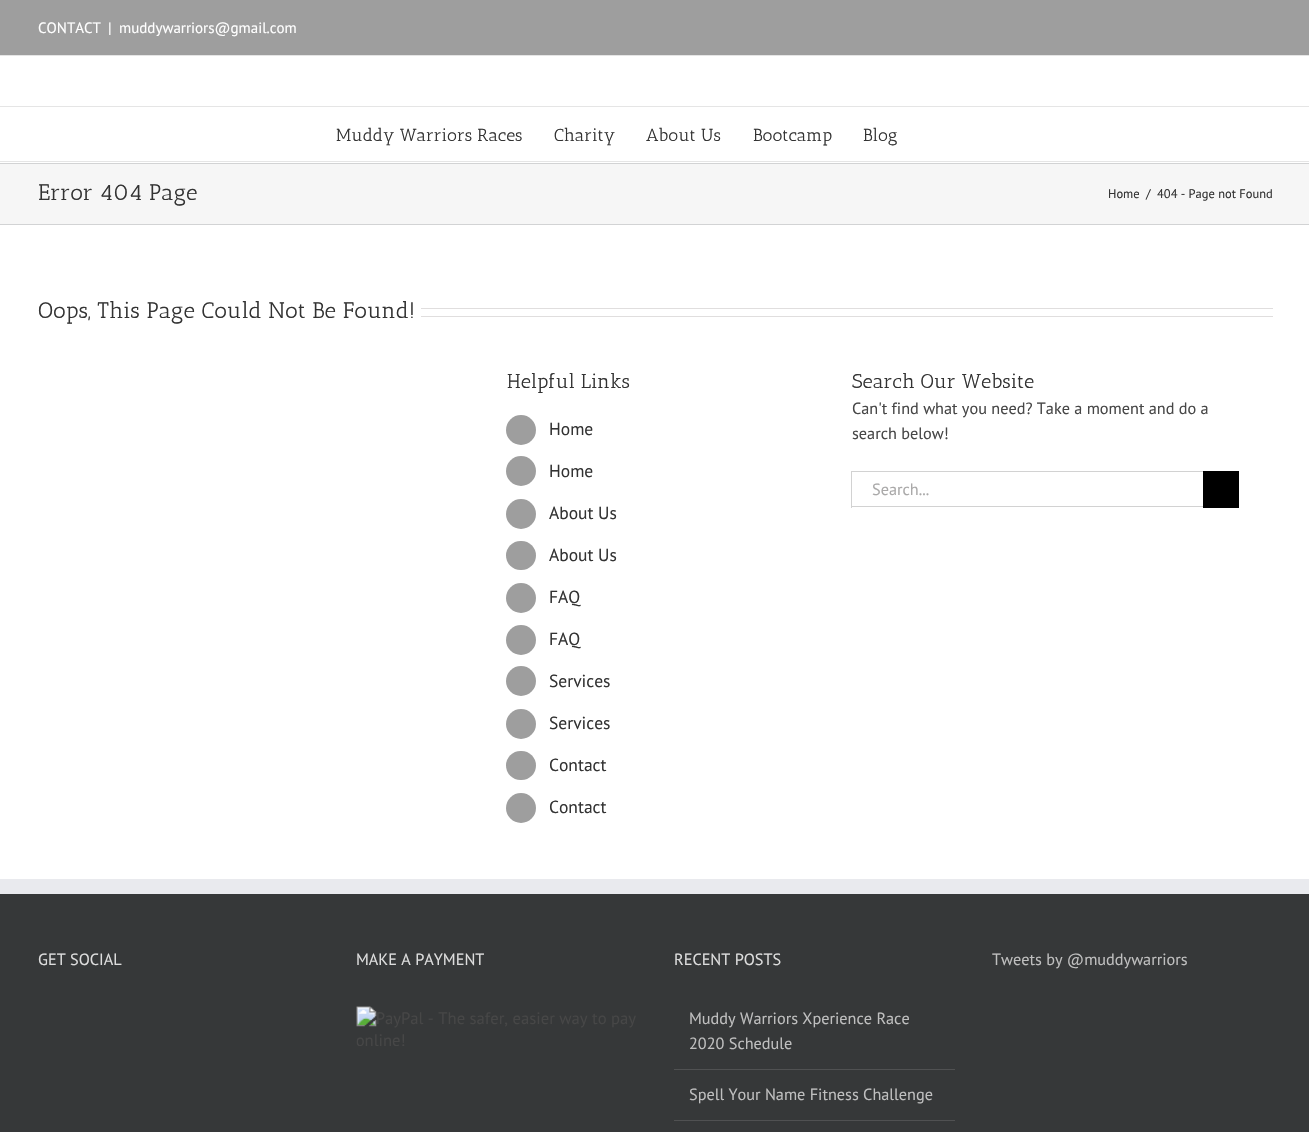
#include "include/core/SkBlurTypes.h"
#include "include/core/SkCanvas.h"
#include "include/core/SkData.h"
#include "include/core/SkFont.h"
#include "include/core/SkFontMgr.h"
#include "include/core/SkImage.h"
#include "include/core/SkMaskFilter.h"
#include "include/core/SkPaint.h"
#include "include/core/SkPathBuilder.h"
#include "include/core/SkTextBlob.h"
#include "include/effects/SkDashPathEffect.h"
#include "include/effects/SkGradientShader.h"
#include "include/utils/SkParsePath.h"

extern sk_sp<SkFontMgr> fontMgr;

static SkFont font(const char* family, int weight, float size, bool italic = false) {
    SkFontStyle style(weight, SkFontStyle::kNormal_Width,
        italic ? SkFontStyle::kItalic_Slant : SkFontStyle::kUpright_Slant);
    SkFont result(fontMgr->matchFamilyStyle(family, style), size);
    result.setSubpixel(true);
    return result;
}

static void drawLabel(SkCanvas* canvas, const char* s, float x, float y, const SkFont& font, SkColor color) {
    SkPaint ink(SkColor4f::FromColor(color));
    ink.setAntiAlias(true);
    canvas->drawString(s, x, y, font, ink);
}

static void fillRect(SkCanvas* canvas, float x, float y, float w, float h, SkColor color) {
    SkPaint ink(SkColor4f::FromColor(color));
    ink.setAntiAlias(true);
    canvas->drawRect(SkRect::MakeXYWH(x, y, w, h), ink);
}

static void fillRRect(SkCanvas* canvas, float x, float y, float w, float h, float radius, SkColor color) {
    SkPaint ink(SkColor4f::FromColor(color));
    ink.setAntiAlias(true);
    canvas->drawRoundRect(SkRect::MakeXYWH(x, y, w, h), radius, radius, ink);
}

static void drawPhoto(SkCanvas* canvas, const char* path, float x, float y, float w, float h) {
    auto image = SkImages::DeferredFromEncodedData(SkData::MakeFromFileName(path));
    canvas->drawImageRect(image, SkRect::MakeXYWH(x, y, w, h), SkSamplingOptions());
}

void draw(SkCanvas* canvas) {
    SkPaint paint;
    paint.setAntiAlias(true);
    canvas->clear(0xFFFFFFFF);
    fillRect(canvas, 0, 0, 1309, 55, 0xFF9E9E9E);
    fillRect(canvas, 0, 55, 1309, 1, 0xFFE5E5E5);
    SkFont font1 = font("PT Sans", 400, 15);
    drawLabel(canvas, "CONTACT", 38, 33, font1, 0xFFFFFFFF);
    drawLabel(canvas, "|", 108, 33, font1, 0xFFFFFFFF);
    drawLabel(canvas, "muddywarriors@gmail.com", 119, 33, font1, 0xFFFFFFFF);
    fillRect(canvas, 0, 106, 1309, 1, 0xFFE5E5E5);
    fillRect(canvas, 0, 161, 1309, 1, 0xFFE5E5E5);
    SkFont font2 = font("Antic Slab", 400, 17.5f);
    drawLabel(canvas, "Muddy Warriors Races", 336, 141, font2, 0xFF333333);
    drawLabel(canvas, "Charity", 554, 141, font2, 0xFF333333);
    drawLabel(canvas, "About Us", 646, 141, font2, 0xFF333333);
    drawLabel(canvas, "Bootcamp", 753, 141, font2, 0xFF333333);
    drawLabel(canvas, "Blog", 863, 141, font2, 0xFF333333);
    fillRect(canvas, 0, 164, 1309, 60, 0xFFF6F6F6);
    fillRect(canvas, 0, 163, 1309, 1, 0xFFD2D3D4);
    fillRect(canvas, 0, 224, 1309, 1, 0xFFD2D3D4);
    SkFont font3 = font("Antic Slab", 400, 22.5f);
    drawLabel(canvas, "Error 404 Page", 38, 200, font3, 0xFF333333);
    SkFont font4 = font("PT Sans", 400, 12.5f);
    drawLabel(canvas, "Home", 1108, 198, font4, 0xFF333333);
    drawLabel(canvas, "/", 1146, 198, font4, 0xFF333333);
    drawLabel(canvas, "404 - Page not Found", 1157, 198, font4, 0xFF333333);
    drawLabel(canvas, "Oops, This Page Could Not Be Found!", 38, 318, font3, 0xFF333333);
    fillRect(canvas, 421, 308, 852, 1, 0xFFE0DEDE);
    fillRect(canvas, 421, 316, 852, 1, 0xFFE0DEDE);
    SkFont font5 = font("Antic Slab", 400, 20);
    drawLabel(canvas, "Helpful Links", 507, 388, font5, 0xFF333333);
    paint.setColor(0xFF9E9E9E);
    canvas->drawCircle(521, 430, 15, paint);
    SkFont font6 = font("PT Sans", 400, 17.5f);
    drawLabel(canvas, "Home", 549, 435, font6, 0xFF333333);
    canvas->drawCircle(521, 471, 15, paint);
    drawLabel(canvas, "Home", 549, 477, font6, 0xFF333333);
    canvas->drawCircle(521, 514, 15, paint);
    drawLabel(canvas, "About Us", 549, 519, font6, 0xFF333333);
    fillRRect(canvas, 506, 541, 30, 29, 14.5f, 0xFF9E9E9E);
    drawLabel(canvas, "About Us", 549, 561, font6, 0xFF333333);
    canvas->drawCircle(521, 598, 15, paint);
    drawLabel(canvas, "FAQ", 549, 603, font6, 0xFF333333);
    canvas->drawCircle(521, 640, 15, paint);
    drawLabel(canvas, "FAQ", 549, 645, font6, 0xFF333333);
    canvas->drawCircle(521, 681, 15, paint);
    drawLabel(canvas, "Services", 549, 687, font6, 0xFF333333);
    canvas->drawCircle(521, 724, 15, paint);
    drawLabel(canvas, "Services", 549, 729, font6, 0xFF333333);
    fillRRect(canvas, 506, 751, 30, 29, 14.5f, 0xFF9E9E9E);
    drawLabel(canvas, "Contact", 549, 771, font6, 0xFF333333);
    canvas->drawCircle(521, 808, 15, paint);
    drawLabel(canvas, "Contact", 549, 813, font6, 0xFF333333);
    drawLabel(canvas, "Search Our Website", 852, 388, font5, 0xFF333333);
    SkFont font7 = font("PT Sans", 400, 16.25f);
    drawLabel(canvas, "Can't find what you need? Take a moment and do a", 852, 414, font7, 0xFF474747);
    drawLabel(canvas, "search below!", 852, 439, font7, 0xFF474747);
    fillRect(canvas, 851, 471, 352, 1, 0xFFD2D2D2);
    fillRect(canvas, 851, 506, 352, 1, 0xFFD2D2D2);
    fillRect(canvas, 851, 471, 1, 37, 0xFFD2D2D2);
    drawLabel(canvas, "Search...", 872, 495, font7, 0xFFAAA9A9);
    fillRect(canvas, 1203, 471, 36, 37, 0xFF000000);
    fillRect(canvas, 0, 894, 1309, 238, 0xFF363839);
    fillRect(canvas, 0, 879, 1309, 15, 0xFFE9EAEE);
    drawLabel(canvas, "GET SOCIAL", 38, 965, font7, 0xFFDDDDDD);
    drawLabel(canvas, "MAKE A PAYMENT", 356, 965, font7, 0xFFDDDDDD);
    drawPhoto(canvas, "assets/img1.png", 356, 1006, 280, 40);
    drawLabel(canvas, "RECENT POSTS", 674, 965, font7, 0xFFDDDDDD);
    fillRect(canvas, 674, 1069, 281, 1, 0xFF505152);
    drawLabel(canvas, "Muddy Warriors Xperience Race", 689, 1024, font7, 0xFFBFBFBF);
    drawLabel(canvas, "2020 Schedule", 689, 1049, font7, 0xFFBFBFBF);
    fillRect(canvas, 674, 1120, 281, 1, 0xFF505152);
    drawLabel(canvas, "Spell Your Name Fitness Challenge", 689, 1100, font7, 0xFFBFBFBF);
    drawLabel(canvas, "Tweets by @muddywarriors", 992, 965, font7, 0xFFBFBFBF);
}
